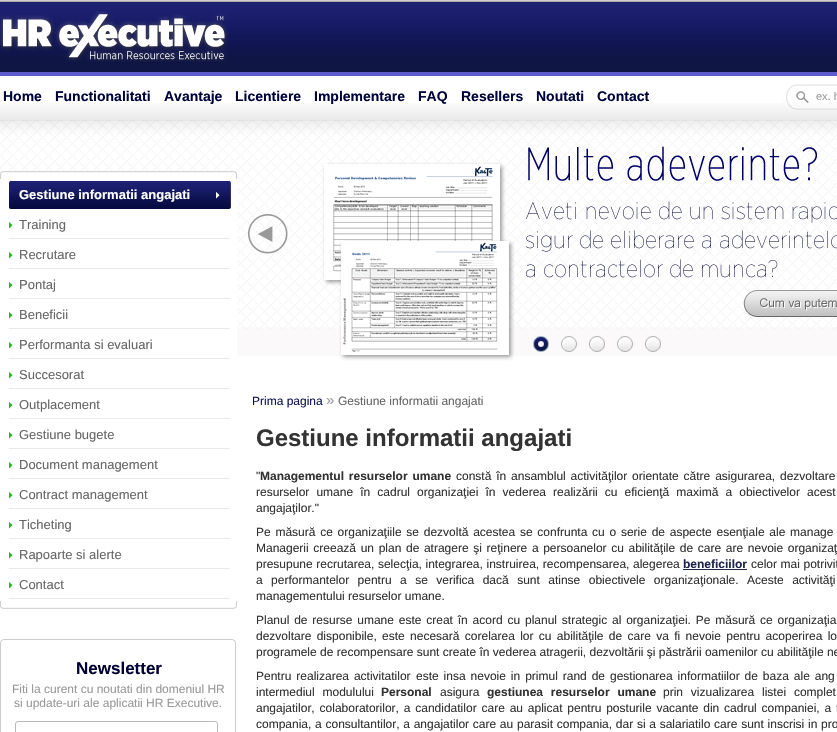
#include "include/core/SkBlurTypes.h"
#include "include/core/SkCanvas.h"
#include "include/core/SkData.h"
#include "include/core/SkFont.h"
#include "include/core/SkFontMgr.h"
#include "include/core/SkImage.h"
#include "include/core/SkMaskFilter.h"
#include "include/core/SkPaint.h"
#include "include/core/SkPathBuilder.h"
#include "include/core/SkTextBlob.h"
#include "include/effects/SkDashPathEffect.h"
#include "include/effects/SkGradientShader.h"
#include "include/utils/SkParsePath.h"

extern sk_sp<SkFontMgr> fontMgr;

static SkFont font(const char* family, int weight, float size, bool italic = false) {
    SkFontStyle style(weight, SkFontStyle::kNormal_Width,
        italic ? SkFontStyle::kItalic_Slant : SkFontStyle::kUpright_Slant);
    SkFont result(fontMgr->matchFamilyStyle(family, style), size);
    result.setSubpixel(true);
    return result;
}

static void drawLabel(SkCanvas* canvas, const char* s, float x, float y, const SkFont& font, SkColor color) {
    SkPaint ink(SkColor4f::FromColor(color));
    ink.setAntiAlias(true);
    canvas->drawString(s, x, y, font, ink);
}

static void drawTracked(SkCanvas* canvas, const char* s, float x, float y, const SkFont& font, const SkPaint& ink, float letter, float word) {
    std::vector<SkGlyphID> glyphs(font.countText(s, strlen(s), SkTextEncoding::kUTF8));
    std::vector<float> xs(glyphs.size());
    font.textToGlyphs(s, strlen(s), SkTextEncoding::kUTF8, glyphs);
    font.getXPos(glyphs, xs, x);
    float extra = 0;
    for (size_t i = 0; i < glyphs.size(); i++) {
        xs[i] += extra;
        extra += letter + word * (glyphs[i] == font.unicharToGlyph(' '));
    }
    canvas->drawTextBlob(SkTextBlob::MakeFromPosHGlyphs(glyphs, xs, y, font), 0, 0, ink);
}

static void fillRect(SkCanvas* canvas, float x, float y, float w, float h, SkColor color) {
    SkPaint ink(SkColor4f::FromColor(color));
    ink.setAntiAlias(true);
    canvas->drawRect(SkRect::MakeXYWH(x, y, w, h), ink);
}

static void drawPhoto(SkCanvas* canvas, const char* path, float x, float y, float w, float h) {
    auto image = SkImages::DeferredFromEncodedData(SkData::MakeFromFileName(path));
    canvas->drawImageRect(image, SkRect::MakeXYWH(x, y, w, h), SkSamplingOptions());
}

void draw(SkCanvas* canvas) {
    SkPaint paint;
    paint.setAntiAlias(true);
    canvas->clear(0xFFFFFFFF);
    drawPhoto(canvas, "assets/img1.png", 0, 0, 837, 76);
    drawPhoto(canvas, "assets/img2.png", 0, 11, 228, 51);
    drawPhoto(canvas, "assets/img3.png", 0, 103, 837, 17);
    SkFont font1 = font("Liberation Sans", 700, 14);
    drawLabel(canvas, "Home", 3, 101, font1, 0xFF00033B);
    drawLabel(canvas, "Functionalitati", 55, 101, font1, 0xFF00033B);
    drawLabel(canvas, "Avantaje", 164, 101, font1, 0xFF00033B);
    drawLabel(canvas, "Licentiere", 235, 101, font1, 0xFF00033B);
    drawLabel(canvas, "Implementare", 314, 101, font1, 0xFF00033B);
    drawLabel(canvas, "FAQ", 418, 101, font1, 0xFF00033B);
    drawLabel(canvas, "Resellers", 461, 101, font1, 0xFF00033B);
    drawLabel(canvas, "Noutati", 536, 101, font1, 0xFF00033B);
    drawLabel(canvas, "Contact", 597, 101, font1, 0xFF00033B);
    drawPhoto(canvas, "assets/img4.png", 783, 84, 54, 26);
    SkFont font2 = font("Liberation Sans", 400, 11);
    drawLabel(canvas, "ex. h", 816, 100, font2, 0xFF999999);
    drawPhoto(canvas, "assets/img5.png", 0, 120, 837, 236);
    drawPhoto(canvas, "assets/img6.png", 0, 171, 237, 8);
    fillRect(canvas, 0, 179, 237, 177, 0xFFFFFFFF);
    drawPhoto(canvas, "assets/img7.png", 9, 181, 222, 28);
    SkFont font3 = font("Liberation Sans", 700, 13);
    drawLabel(canvas, "Gestiune informatii angajati", 19, 199, font3, 0xFFFFFFFF);
    drawPhoto(canvas, "assets/img8.png", 9, 221, 221, 18);
    SkFont font4 = font("Liberation Sans", 400, 13);
    drawLabel(canvas, "Training", 19, 229, font4, 0xFF666666);
    drawPhoto(canvas, "assets/img8.png", 9, 251, 221, 18);
    drawLabel(canvas, "Recrutare", 19, 259, font4, 0xFF666666);
    drawPhoto(canvas, "assets/img8.png", 9, 281, 221, 18);
    drawLabel(canvas, "Pontaj", 19, 289, font4, 0xFF666666);
    drawPhoto(canvas, "assets/img8.png", 9, 311, 221, 18);
    drawLabel(canvas, "Beneficii", 19, 319, font4, 0xFF666666);
    drawPhoto(canvas, "assets/img8.png", 9, 341, 221, 18);
    drawLabel(canvas, "Performanta si evaluari", 19, 349, font4, 0xFF666666);
    drawPhoto(canvas, "assets/img8.png", 9, 371, 221, 18);
    drawLabel(canvas, "Succesorat", 19, 379, font4, 0xFF666666);
    drawPhoto(canvas, "assets/img8.png", 9, 401, 221, 18);
    drawLabel(canvas, "Outplacement", 19, 409, font4, 0xFF666666);
    drawPhoto(canvas, "assets/img8.png", 9, 431, 221, 18);
    drawLabel(canvas, "Gestiune bugete", 19, 439, font4, 0xFF666666);
    drawPhoto(canvas, "assets/img8.png", 9, 461, 221, 18);
    drawLabel(canvas, "Document management", 19, 469, font4, 0xFF666666);
    drawPhoto(canvas, "assets/img8.png", 9, 491, 221, 18);
    drawLabel(canvas, "Contract management", 19, 499, font4, 0xFF666666);
    drawPhoto(canvas, "assets/img8.png", 9, 521, 221, 18);
    drawLabel(canvas, "Ticheting", 19, 529, font4, 0xFF666666);
    drawPhoto(canvas, "assets/img8.png", 9, 551, 221, 18);
    drawLabel(canvas, "Rapoarte si alerte", 19, 559, font4, 0xFF666666);
    drawPhoto(canvas, "assets/img8.png", 9, 581, 221, 18);
    drawLabel(canvas, "Contact", 19, 589, font4, 0xFF666666);
    drawPhoto(canvas, "assets/img9.png", 0, 601, 237, 8);
    drawPhoto(canvas, "assets/img10.png", 0, 639, 236, 93);
    SkFont font5 = font("Liberation Sans", 700, 17);
    drawLabel(canvas, "Newsletter", 76, 674, font5, 0xFF000033);
    SkFont font6 = font("Liberation Sans", 400, 12);
    drawLabel(canvas, "Fiti la curent cu noutati din domeniul HR", 12, 693, font6, 0xFF999999);
    drawLabel(canvas, "si update-uri ale aplicatii HR Executive.", 14, 707, font6, 0xFF999999);
    paint.setStroke(true);
    paint.setStrokeWidth(1);
    paint.setColor(0xFFBBBABA);
    canvas->drawRoundRect(SkRect::MakeXYWH(15.5f, 721.5f, 202, 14), 2.5f, 2.5f, paint);
    drawPhoto(canvas, "assets/img11.png", 248, 214, 40, 40);
    drawPhoto(canvas, "assets/img12.png", 322, 146, 515, 215);
    drawPhoto(canvas, "assets/img13.png", 533, 336, 16, 16);
    drawPhoto(canvas, "assets/img14.png", 561, 336, 16, 16);
    drawPhoto(canvas, "assets/img14.png", 589, 336, 16, 16);
    drawPhoto(canvas, "assets/img14.png", 617, 336, 16, 16);
    drawPhoto(canvas, "assets/img14.png", 645, 336, 16, 16);
    drawLabel(canvas, "Prima pagina", 252, 405, font6, 0xFF101457);
    SkFont font7 = font("Liberation Sans", 400, 15);
    drawLabel(canvas, "»", 326, 405, font7, 0xFF999999);
    drawLabel(canvas, "Gestiune informatii angajati", 338, 405, font6, 0xFF666666);
    SkFont font8 = font("Liberation Sans", 700, 24);
    drawLabel(canvas, "Gestiune informatii angajati", 256, 446, font8, 0xFF333333);
    drawLabel(canvas, "\"", 256, 480, font6, 0xFF333333);
    SkFont font9 = font("Liberation Sans", 700, 12);
    paint.setStroke(false);
    paint.setColor(0xFF333333);
    drawTracked(canvas, "Managementul resurselor umane", 260, 480, font9, paint, 0, 1.5f);
    drawTracked(canvas, "constă în ansamblul activităţilor orientate către asigurarea, dezvoltare", 456, 480, font6, paint, 0, 1.5f);
    drawTracked(canvas, "resurselor umane în cadrul organizaţiei în vederea realizării cu eficienţă maximă a obiectivelor acest", 256, 496, font6, paint, 0, 3.75f);
    drawLabel(canvas, "angajaţilor.\"", 256, 512, font6, 0xFF333333);
    drawTracked(canvas, "Pe măsură ce organizaţiile se dezvoltă acestea se confrunta cu o serie de aspecte esenţiale ale manage", 256, 536, font6, paint, 0, 1.4f);
    drawTracked(canvas, "Managerii creează un plan de atragere şi reţinere a persoanelor cu abilităţile de care are nevoie organizaţ", 256, 552, font6, paint, 0, 1.3f);
    drawTracked(canvas, "presupune recrutarea, selecţia, integrarea, instruirea, recompensarea, alegerea", 256, 568, font6, paint, 0, 0.25f);
    drawLabel(canvas, "beneficiilor", 683, 568, font9, 0xFF20254C);
    fillRect(canvas, 683, 569, 64, 1, 0xFF20254C);
    drawTracked(canvas, "celor mai potrivit", 751, 568, font6, paint, 0, 0.25f);
    drawTracked(canvas, "a performantelor pentru a se verifica dacă sunt atinse obiectivele organizaţionale. Aceste activităţi", 256, 584, font6, paint, 0, 5.1f);
    drawLabel(canvas, "managementului resurselor umane.", 256, 600, font6, 0xFF333333);
    drawTracked(canvas, "Planul de resurse umane este creat în acord cu planul strategic al organizaţiei. Pe măsură ce organizaţia", 256, 624, font6, paint, 0, 1.5f);
    drawTracked(canvas, "dezvoltare disponibile, este necesară corelarea lor cu abilităţile de care va fi nevoie pentru acoperirea lo", 256, 640, font6, paint, 0, 2);
    drawLabel(canvas, "programele de recompensare sunt create în vederea atragerii, dezvoltării şi păstrării oamenilor cu abilităţile ne", 256, 656, font6, 0xFF333333);
    drawTracked(canvas, "Pentru realizarea activitatilor", 256, 680, font6, paint, 0, 1.6f);
    drawTracked(canvas, "este insa nevoie in primul rand de gestionarea informatiilor de baza ale ang", 416, 680, font6, paint, 0, 1.6f);
    drawTracked(canvas, "intermediul modulului", 256, 696, font6, paint, 0, 4.5f);
    drawLabel(canvas, "Personal", 381, 696, font9, 0xFF333333);
    drawLabel(canvas, "asigura", 440, 696, font6, 0xFF333333);
    drawTracked(canvas, "gestiunea resurselor umane", 487, 696, font9, paint, 0, 4.5f);
    drawTracked(canvas, "prin vizualizarea listei complet", 663, 696, font6, paint, 0, 4.5f);
    drawTracked(canvas, "angajatilor, colaboratorilor, a candidatilor care au aplicat pentru posturile vacante din cadrul companiei, a t", 256, 712, font6, paint, 0, 1.5f);
    drawTracked(canvas, "compania, a consultantilor, a angajatilor care au parasit compania, dar si a salariatilo care sunt inscrisi in pro", 256, 728, font6, paint, 0, 0.4f);
}
